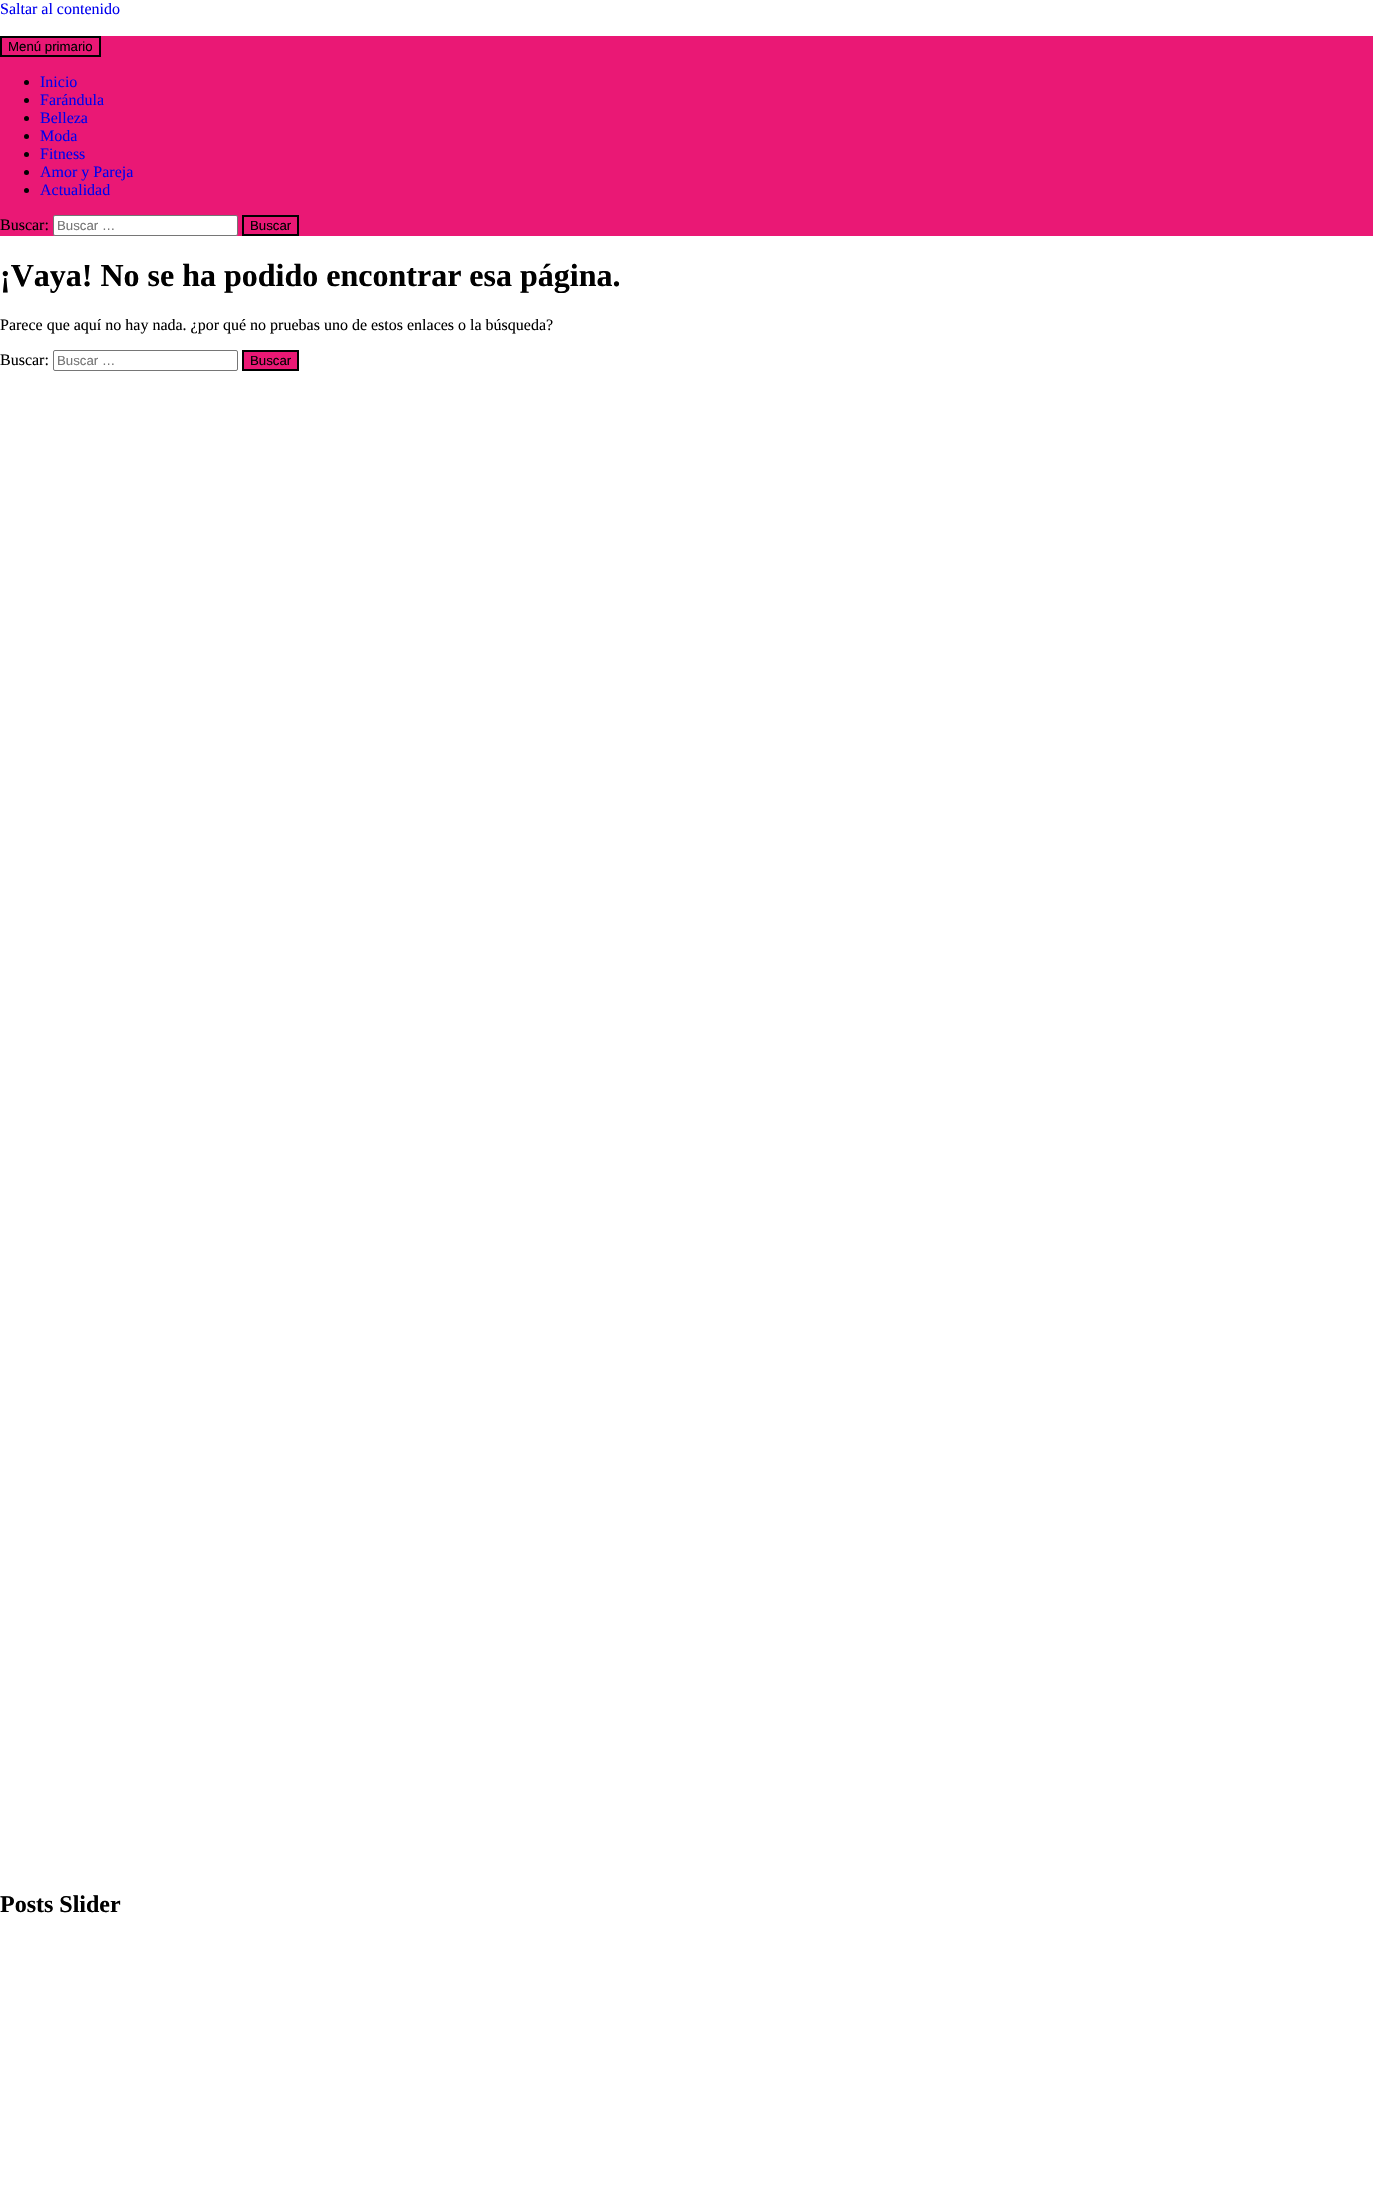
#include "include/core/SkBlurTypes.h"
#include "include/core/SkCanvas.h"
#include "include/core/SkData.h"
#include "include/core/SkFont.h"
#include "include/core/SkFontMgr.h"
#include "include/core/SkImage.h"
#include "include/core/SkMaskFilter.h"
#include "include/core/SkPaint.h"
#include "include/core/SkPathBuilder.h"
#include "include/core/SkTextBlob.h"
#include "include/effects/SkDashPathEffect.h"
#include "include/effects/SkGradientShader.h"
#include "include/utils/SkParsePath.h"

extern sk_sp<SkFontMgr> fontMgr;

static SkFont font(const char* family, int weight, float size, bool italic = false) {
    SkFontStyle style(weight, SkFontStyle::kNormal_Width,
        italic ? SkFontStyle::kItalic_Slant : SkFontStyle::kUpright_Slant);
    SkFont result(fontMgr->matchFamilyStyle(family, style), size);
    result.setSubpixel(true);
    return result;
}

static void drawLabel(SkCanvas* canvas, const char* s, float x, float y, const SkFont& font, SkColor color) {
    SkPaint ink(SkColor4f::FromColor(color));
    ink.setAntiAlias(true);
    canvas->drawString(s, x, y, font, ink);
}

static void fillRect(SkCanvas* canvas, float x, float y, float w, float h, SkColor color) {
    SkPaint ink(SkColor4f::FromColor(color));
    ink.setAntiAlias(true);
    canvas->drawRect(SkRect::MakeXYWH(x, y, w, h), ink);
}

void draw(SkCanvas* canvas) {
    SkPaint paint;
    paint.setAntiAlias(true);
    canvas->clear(0xFFFFFFFF);
    SkFont font1 = font("Liberation Serif", 400, 16);
    drawLabel(canvas, "Saltar al contenido", 0, 14, font1, 0xFF0000EE);
    fillRect(canvas, 0, 36, 1373, 200, 0xFFEA1875);
    paint.setStroke(true);
    paint.setStrokeWidth(2);
    paint.setColor(0xFF000000);
    canvas->drawRect(SkRect::MakeXYWH(1, 37, 99, 19), paint);
    SkFont font2 = font("Liberation Sans", 400, 13.25f);
    drawLabel(canvas, "Menú primario", 8, 51, font2, 0xFF000000);
    paint.setStroke(false);
    canvas->drawCircle(26.5f, 82.5f, 2.5f, paint);
    drawLabel(canvas, "Inicio", 40, 87, font1, 0xFF0000EE);
    canvas->drawCircle(26.5f, 100.5f, 2.5f, paint);
    drawLabel(canvas, "Farándula", 40, 105, font1, 0xFF0000EE);
    canvas->drawCircle(26.5f, 118.5f, 2.5f, paint);
    drawLabel(canvas, "Belleza", 40, 123, font1, 0xFF0000EE);
    canvas->drawCircle(26.5f, 136.5f, 2.5f, paint);
    drawLabel(canvas, "Moda", 40, 141, font1, 0xFF0000EE);
    canvas->drawCircle(26.5f, 154.5f, 2.5f, paint);
    drawLabel(canvas, "Fitness", 40, 159, font1, 0xFF0000EE);
    canvas->drawCircle(26.5f, 172.5f, 2.5f, paint);
    drawLabel(canvas, "Amor y Pareja", 40, 177, font1, 0xFF0000EE);
    canvas->drawCircle(26.5f, 190.5f, 2.5f, paint);
    drawLabel(canvas, "Actualidad", 40, 195, font1, 0xFF0000EE);
    drawLabel(canvas, "Buscar:", 0, 230, font1, 0xFF000000);
    paint.setColor(0xFFFFFFFF);
    canvas->drawRoundRect(SkRect::MakeXYWH(53.5f, 215.5f, 184, 20), 1.5f, 1.5f, paint);
    paint.setStroke(true);
    paint.setStrokeWidth(1);
    paint.setColor(0xFF767676);
    canvas->drawRoundRect(SkRect::MakeXYWH(53.5f, 215.5f, 184, 20), 1.5f, 1.5f, paint);
    drawLabel(canvas, "Buscar …", 57, 230, font2, 0xFF757575);
    paint.setStrokeWidth(2);
    paint.setColor(0xFF000000);
    canvas->drawRect(SkRect::MakeXYWH(243, 216, 55, 19), paint);
    drawLabel(canvas, "Buscar", 250, 230, font2, 0xFF000000);
    SkFont font3 = font("Liberation Serif", 700, 32);
    drawLabel(canvas, "¡Vaya! No se ha podido encontrar esa página.", 0, 286, font3, 0xFF000000);
    drawLabel(canvas, "Parece que aquí no hay nada. ¿por qué no pruebas uno de estos enlaces o la búsqueda?", 0, 330, font1, 0xFF000000);
    drawLabel(canvas, "Buscar:", 0, 365, font1, 0xFF000000);
    paint.setStrokeWidth(1);
    paint.setColor(0xFF767676);
    canvas->drawRoundRect(SkRect::MakeXYWH(53.5f, 350.5f, 184, 20), 1.5f, 1.5f, paint);
    drawLabel(canvas, "Buscar …", 57, 365, font2, 0xFF757575);
    paint.setStroke(false);
    paint.setColor(0xFFEA1875);
    canvas->drawRect(SkRect::MakeXYWH(243, 351, 55, 19), paint);
    paint.setStroke(true);
    paint.setStrokeWidth(2);
    paint.setColor(0xFF000000);
    canvas->drawRect(SkRect::MakeXYWH(243, 351, 55, 19), paint);
    drawLabel(canvas, "Buscar", 250, 365, font2, 0xFF000000);
    SkFont font4 = font("Liberation Serif", 700, 24);
    drawLabel(canvas, "Posts Slider", 0, 1912, font4, 0xFF000000);
}
